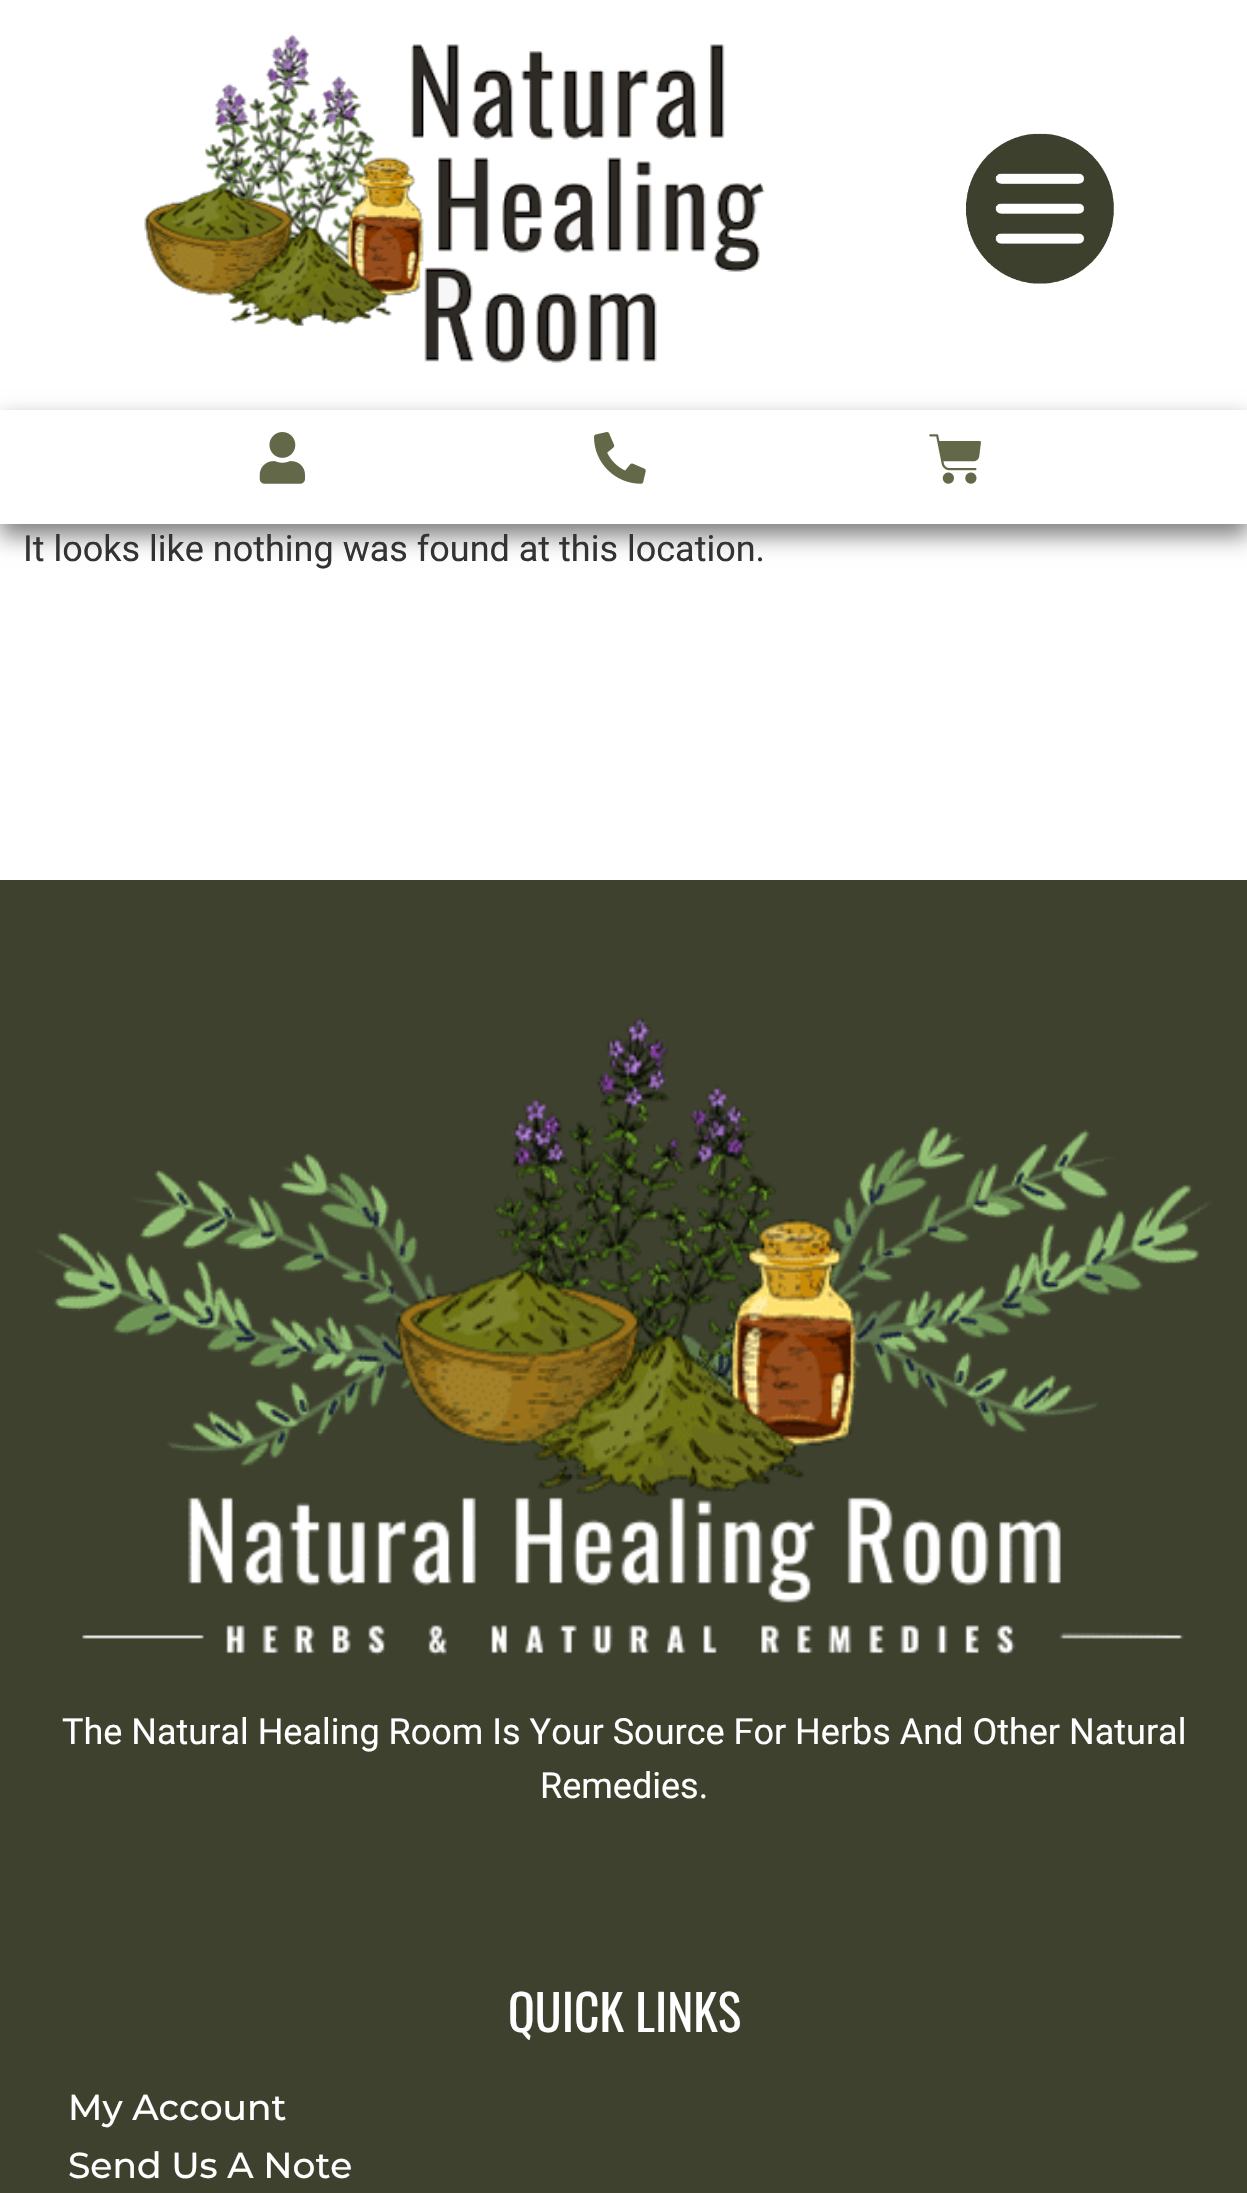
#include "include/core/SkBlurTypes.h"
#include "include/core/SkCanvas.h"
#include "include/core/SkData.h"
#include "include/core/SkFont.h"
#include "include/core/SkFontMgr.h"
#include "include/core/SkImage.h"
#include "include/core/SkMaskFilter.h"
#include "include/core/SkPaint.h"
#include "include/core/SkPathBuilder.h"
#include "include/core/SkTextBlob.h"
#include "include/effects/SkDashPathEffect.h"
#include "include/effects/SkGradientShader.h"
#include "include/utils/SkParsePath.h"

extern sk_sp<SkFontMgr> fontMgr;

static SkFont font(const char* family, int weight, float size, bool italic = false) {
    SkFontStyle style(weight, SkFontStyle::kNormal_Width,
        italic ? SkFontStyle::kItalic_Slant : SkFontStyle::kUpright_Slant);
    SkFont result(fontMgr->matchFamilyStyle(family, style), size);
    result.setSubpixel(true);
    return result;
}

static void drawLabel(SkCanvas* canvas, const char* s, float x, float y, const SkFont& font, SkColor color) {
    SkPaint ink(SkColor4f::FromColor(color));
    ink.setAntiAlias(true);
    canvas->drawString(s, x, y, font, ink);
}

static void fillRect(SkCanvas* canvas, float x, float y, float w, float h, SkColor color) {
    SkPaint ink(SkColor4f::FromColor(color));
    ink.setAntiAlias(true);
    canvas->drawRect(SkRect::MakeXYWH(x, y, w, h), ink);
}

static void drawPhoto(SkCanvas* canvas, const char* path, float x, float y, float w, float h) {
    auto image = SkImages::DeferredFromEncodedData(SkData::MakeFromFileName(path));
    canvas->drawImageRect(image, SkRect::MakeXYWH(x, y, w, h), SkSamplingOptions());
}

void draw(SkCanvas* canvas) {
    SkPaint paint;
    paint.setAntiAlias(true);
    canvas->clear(0xFFFFFFFF);
    drawPhoto(canvas, "assets/img1.png", 144, 34, 621, 330);
    drawPhoto(canvas, "assets/img2.png", 966, 133, 148, 151);
    paint.setColor(0x80000000);
    paint.setMaskFilter(SkMaskFilter::MakeBlur(kNormal_SkBlurStyle, 11));
    canvas->drawRect(SkRect::MakeXYWH(0, 421, 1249, 115), paint);
    paint.setMaskFilter(nullptr);
    fillRect(canvas, 0, 410, 1247, 114, 0xFFFFFFFF);
    drawPhoto(canvas, "assets/img3.png", 259, 432, 46, 52);
    drawPhoto(canvas, "assets/img4.png", 594, 432, 52, 52);
    drawPhoto(canvas, "assets/img5.png", 929, 434, 52, 50);
    SkFont font1 = font("Roboto", 400, 36);
    drawLabel(canvas, "It looks like nothing was found at this location.", 23, 561, font1, 0xFF333333);
    fillRect(canvas, 0, 880, 1247, 1313, 0xFF3E412E);
    drawPhoto(canvas, "assets/img6.png", 36, 1017, 1176, 639);
    drawLabel(canvas, "The Natural Healing Room Is Your Source For Herbs And Other Natural", 62, 1744, font1, 0xFFFFFFFF);
    drawLabel(canvas, "Remedies.", 540, 1798, font1, 0xFFFFFFFF);
    SkFont font2 = font("Oswald", 400, 49.5f);
    drawLabel(canvas, "QUICK LINKS", 508, 2032, font2, 0xFFFFFFFF);
    SkFont font3 = font("Montserrat", 500, 36);
    drawLabel(canvas, "My Account", 68, 2120, font3, 0xFFFFFFFF);
    drawLabel(canvas, "Send Us A Note", 68, 2178, font3, 0xFFFFFFFF);
}
